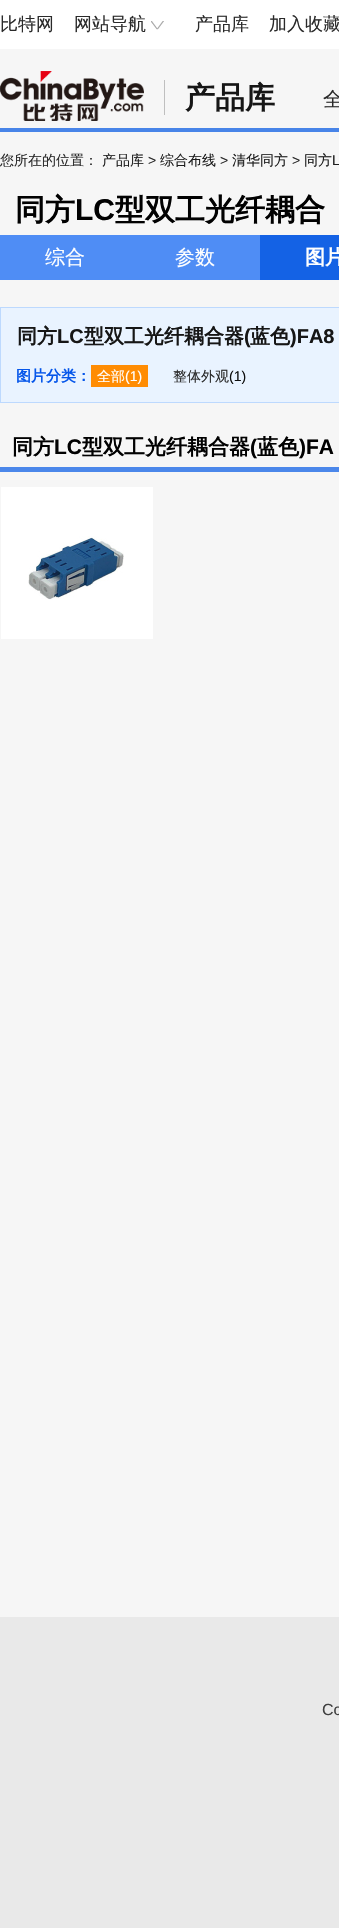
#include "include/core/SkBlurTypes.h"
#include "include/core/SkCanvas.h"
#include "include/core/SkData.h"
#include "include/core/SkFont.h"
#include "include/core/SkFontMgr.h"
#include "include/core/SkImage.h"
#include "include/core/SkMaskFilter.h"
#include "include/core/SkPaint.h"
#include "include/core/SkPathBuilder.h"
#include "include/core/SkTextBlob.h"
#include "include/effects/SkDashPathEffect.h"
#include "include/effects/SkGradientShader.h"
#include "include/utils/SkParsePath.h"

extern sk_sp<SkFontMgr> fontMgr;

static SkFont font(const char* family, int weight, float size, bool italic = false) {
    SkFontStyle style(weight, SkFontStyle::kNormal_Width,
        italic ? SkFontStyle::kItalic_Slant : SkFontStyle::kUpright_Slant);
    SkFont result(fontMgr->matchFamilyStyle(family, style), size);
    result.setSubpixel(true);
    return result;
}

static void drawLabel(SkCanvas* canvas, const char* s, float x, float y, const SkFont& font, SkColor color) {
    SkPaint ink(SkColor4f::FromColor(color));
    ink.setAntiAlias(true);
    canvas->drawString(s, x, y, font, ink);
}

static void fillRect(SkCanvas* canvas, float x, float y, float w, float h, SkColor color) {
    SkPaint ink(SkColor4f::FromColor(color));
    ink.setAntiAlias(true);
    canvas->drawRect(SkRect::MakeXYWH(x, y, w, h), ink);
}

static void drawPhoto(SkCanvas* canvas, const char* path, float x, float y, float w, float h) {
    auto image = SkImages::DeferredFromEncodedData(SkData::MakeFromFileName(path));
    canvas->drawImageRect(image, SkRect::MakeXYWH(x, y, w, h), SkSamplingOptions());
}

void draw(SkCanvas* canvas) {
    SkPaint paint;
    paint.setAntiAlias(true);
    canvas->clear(0xFFE9E9E9);
    fillRect(canvas, 0, 0, 339, 49, 0xFFFFFFFF);
    SkFont font1 = font("WenQuanYi Zen Hei", 500, 18);
    drawLabel(canvas, "比特网", 0, 30, font1, 0xFF2A2A2A);
    drawLabel(canvas, "网站导航", 74, 30, font1, 0xFF2A2A2A);
    drawPhoto(canvas, "assets/img1.png", 151, 21, 13, 9);
    drawLabel(canvas, "产品库", 195, 30, font1, 0xFF2A2A2A);
    drawLabel(canvas, "加入收藏", 269, 30, font1, 0xFF2A2A2A);
    fillRect(canvas, 0, 49, 339, 1568, 0xFFF6F6F6);
    fillRect(canvas, 0, 128, 339, 4, 0xFF4884E8);
    drawPhoto(canvas, "assets/img2.png", 0, 71, 144, 50);
    fillRect(canvas, 164, 80, 1, 35, 0xFFBFBFBF);
    SkFont font2 = font("WenQuanYi Zen Hei", 700, 30);
    drawLabel(canvas, "产品库", 185, 108, font2, 0xFF161616);
    SkFont font3 = font("WenQuanYi Zen Hei", 500, 20);
    drawLabel(canvas, "全", 323, 106, font3, 0xFF2A2A2A);
    SkFont font4 = font("WenQuanYi Zen Hei", 500, 14);
    drawLabel(canvas, "您所在的位置：", 0, 165, font4, 0xFF2A2A2A);
    drawLabel(canvas, "产品库", 102, 165, font4, 0xFF1C1C1C);
    SkFont font5 = font("Liberation Sans", 400, 14);
    drawLabel(canvas, ">", 148, 165, font5, 0xFF2A2A2A);
    drawLabel(canvas, "综合布线", 160, 165, font4, 0xFF1C1C1C);
    drawLabel(canvas, ">", 220, 165, font5, 0xFF2A2A2A);
    drawLabel(canvas, "清华同方", 232, 165, font4, 0xFF1C1C1C);
    drawLabel(canvas, ">", 292, 165, font5, 0xFF2A2A2A);
    drawLabel(canvas, "同方", 304, 165, font4, 0xFF1C1C1C);
    drawLabel(canvas, "L", 332, 165, font5, 0xFF1C1C1C);
    drawLabel(canvas, "同方", 15, 220, font2, 0xFF010101);
    SkFont font6 = font("Liberation Sans", 700, 30);
    drawLabel(canvas, "LC", 75, 220, font6, 0xFF010101);
    drawLabel(canvas, "型双工光纤耦合", 115, 220, font2, 0xFF010101);
    fillRect(canvas, 0, 235, 260, 45, 0xFF4F8DF5);
    drawLabel(canvas, "综合", 45, 264, font3, 0xFFFFFFFF);
    drawLabel(canvas, "参数", 175, 264, font3, 0xFFFFFFFF);
    fillRect(canvas, 260, 235, 79, 45, 0xFF1462E5);
    SkFont font7 = font("WenQuanYi Zen Hei", 700, 20);
    drawLabel(canvas, "图片", 305, 264, font7, 0xFFFFFFFF);
    paint.setColor(0xFFE9F3FF);
    canvas->drawRect(SkRect::MakeXYWH(0.5f, 307.5f, 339, 95), paint);
    paint.setStroke(true);
    paint.setStrokeWidth(1);
    paint.setColor(0xFFBDD9FE);
    canvas->drawRect(SkRect::MakeXYWH(0.5f, 307.5f, 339, 95), paint);
    drawLabel(canvas, "同方", 17, 343, font7, 0xFF161616);
    SkFont font8 = font("Liberation Sans", 700, 20);
    drawLabel(canvas, "LC", 57, 343, font8, 0xFF161616);
    drawLabel(canvas, "型双工光纤耦合器", 84, 343, font7, 0xFF161616);
    drawLabel(canvas, "(", 244, 343, font8, 0xFF161616);
    drawLabel(canvas, "蓝色", 250, 343, font7, 0xFF161616);
    drawLabel(canvas, ")FA8", 290, 343, font8, 0xFF161616);
    SkFont font9 = font("WenQuanYi Zen Hei", 700, 15);
    drawLabel(canvas, "图片分类：", 16, 381, font9, 0xFF0556EA);
    fillRect(canvas, 91, 365, 57, 22, 0xFFFF8C03);
    drawLabel(canvas, "全部", 97, 381, font4, 0xFFFFFFFF);
    drawLabel(canvas, "(1)", 125, 381, font5, 0xFFFFFFFF);
    drawLabel(canvas, "整体外观", 173, 381, font4, 0xFF2A2A2A);
    drawLabel(canvas, "(1)", 229, 381, font5, 0xFF0E0E0E);
    SkFont font10 = font("WenQuanYi Zen Hei", 700, 21);
    drawLabel(canvas, "同方", 12, 454, font10, 0xFF010101);
    SkFont font11 = font("Liberation Sans", 700, 21);
    drawLabel(canvas, "LC", 54, 454, font11, 0xFF010101);
    drawLabel(canvas, "型双工光纤耦合器", 82, 454, font10, 0xFF010101);
    drawLabel(canvas, "(", 250, 454, font11, 0xFF010101);
    drawLabel(canvas, "蓝色", 257, 454, font10, 0xFF010101);
    drawLabel(canvas, ")FA", 299, 454, font11, 0xFF010101);
    fillRect(canvas, 0, 467, 339, 5, 0xFF4B87EA);
    fillRect(canvas, 1, 487, 152, 152, 0xFFFFFFFF);
    drawPhoto(canvas, "assets/img3.png", 28, 536, 96, 64);
    SkFont font12 = font("Liberation Sans", 400, 16);
    drawLabel(canvas, "Co", 322, 1715, font12, 0xFF404040);
}
